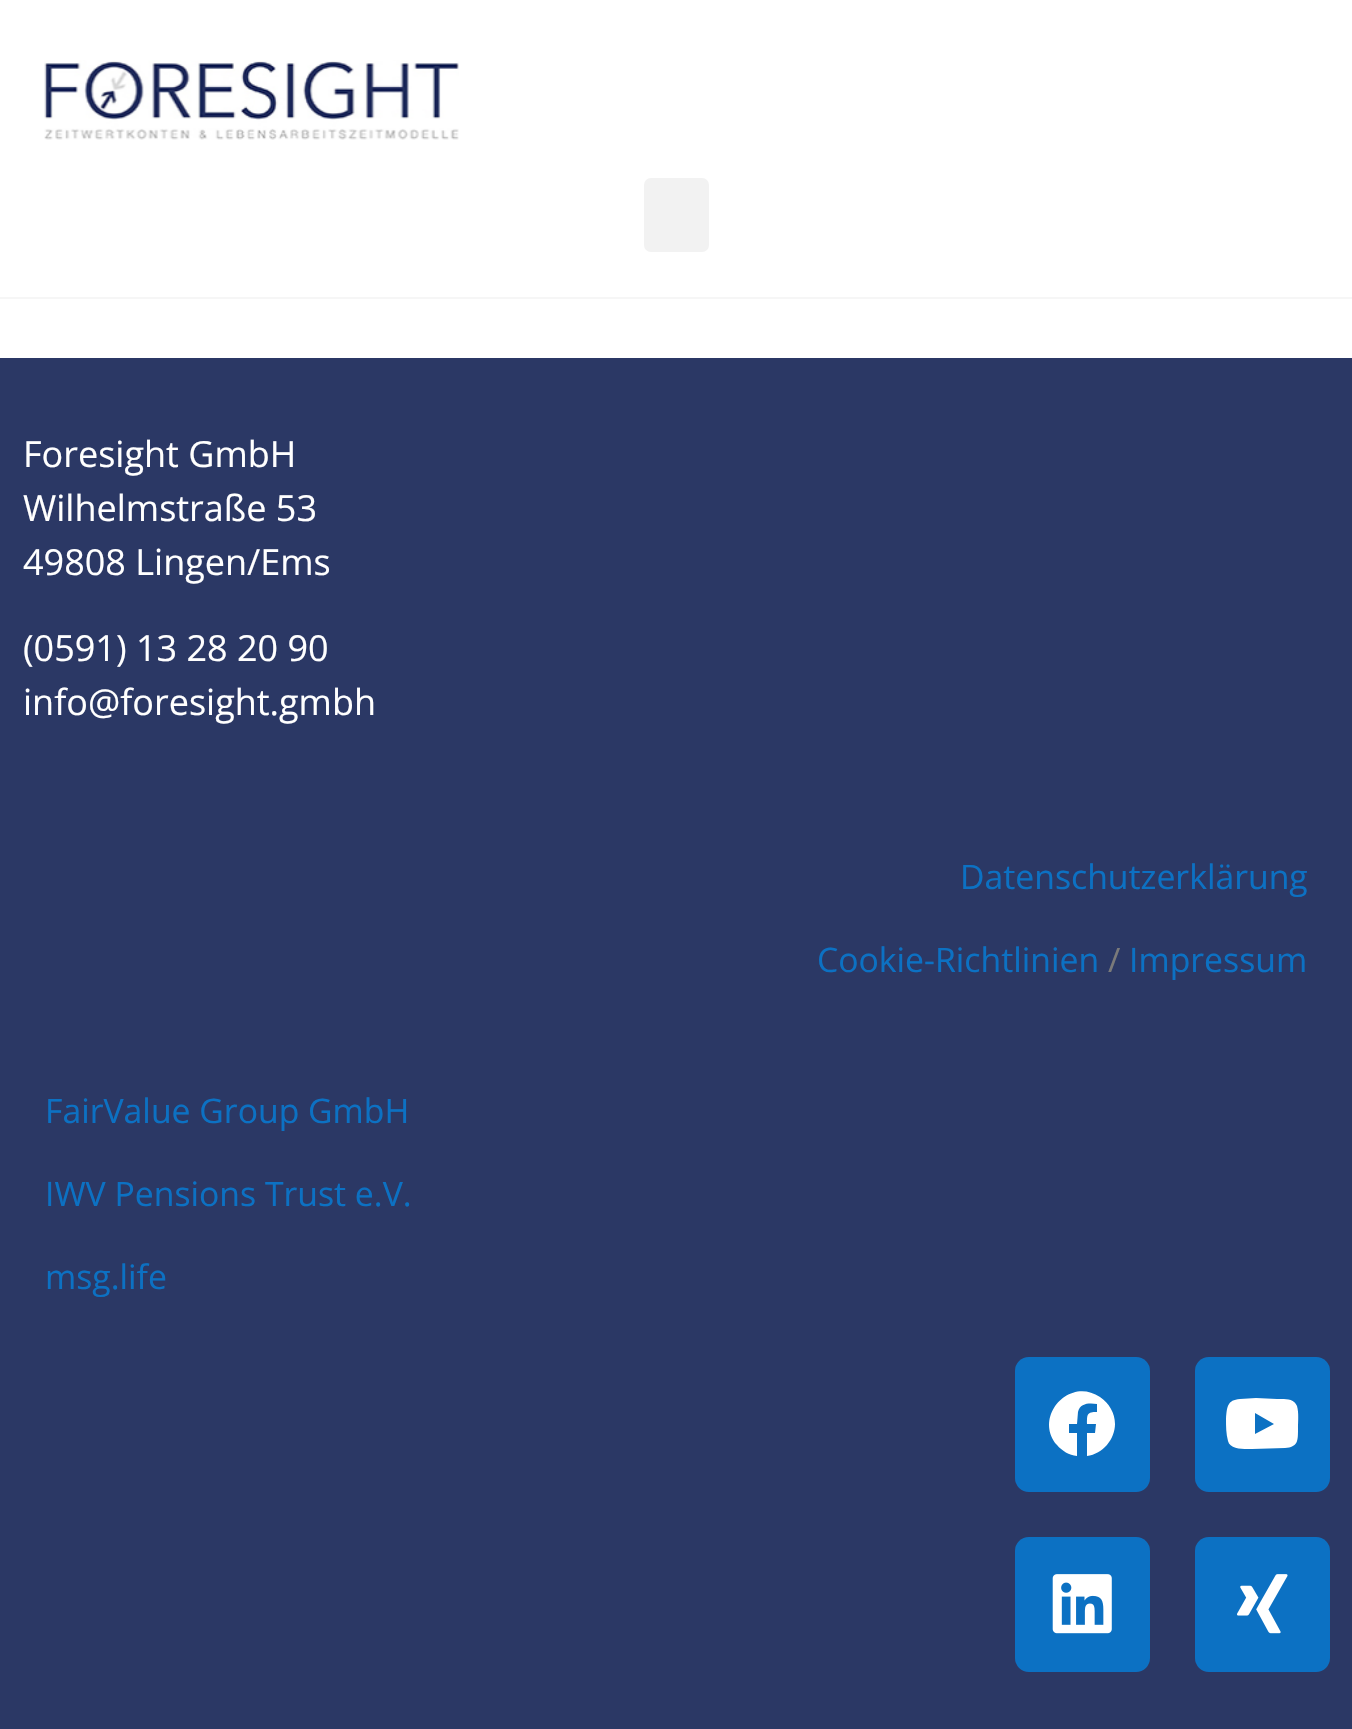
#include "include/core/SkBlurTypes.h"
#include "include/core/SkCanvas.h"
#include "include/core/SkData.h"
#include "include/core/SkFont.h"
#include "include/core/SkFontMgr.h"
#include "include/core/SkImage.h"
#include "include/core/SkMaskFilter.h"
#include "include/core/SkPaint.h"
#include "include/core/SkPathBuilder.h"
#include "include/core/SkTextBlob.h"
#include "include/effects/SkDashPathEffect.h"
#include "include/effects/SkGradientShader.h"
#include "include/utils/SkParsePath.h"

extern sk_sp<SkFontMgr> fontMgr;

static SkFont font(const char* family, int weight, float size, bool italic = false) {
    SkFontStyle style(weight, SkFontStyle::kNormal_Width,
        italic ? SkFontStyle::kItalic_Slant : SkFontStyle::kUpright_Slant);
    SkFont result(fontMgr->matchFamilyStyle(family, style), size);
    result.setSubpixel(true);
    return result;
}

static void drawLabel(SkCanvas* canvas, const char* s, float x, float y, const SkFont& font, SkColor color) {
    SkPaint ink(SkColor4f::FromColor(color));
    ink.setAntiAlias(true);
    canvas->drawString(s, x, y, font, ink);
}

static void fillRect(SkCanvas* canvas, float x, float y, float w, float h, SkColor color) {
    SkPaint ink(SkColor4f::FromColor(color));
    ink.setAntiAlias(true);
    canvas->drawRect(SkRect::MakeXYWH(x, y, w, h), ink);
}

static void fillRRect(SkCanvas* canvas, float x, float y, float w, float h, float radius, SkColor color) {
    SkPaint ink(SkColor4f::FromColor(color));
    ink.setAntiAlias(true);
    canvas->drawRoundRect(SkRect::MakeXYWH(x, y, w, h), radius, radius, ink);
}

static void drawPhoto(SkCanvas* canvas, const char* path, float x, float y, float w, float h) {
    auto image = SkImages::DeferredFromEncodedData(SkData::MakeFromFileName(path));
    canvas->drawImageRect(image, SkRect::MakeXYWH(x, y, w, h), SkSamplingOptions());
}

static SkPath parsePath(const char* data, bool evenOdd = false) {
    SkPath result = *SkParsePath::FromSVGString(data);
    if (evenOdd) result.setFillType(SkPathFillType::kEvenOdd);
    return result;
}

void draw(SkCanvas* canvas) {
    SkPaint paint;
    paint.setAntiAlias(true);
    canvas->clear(0xFFFFFFFF);
    fillRect(canvas, 0, 297, 1352, 2, 0xFFF6F6F6);
    drawPhoto(canvas, "assets/img1.png", 44, 60, 415, 80);
    fillRRect(canvas, 644, 178, 65, 74, 7, 0xFFF2F2F2);
    fillRect(canvas, 0, 358, 1352, 1371, 0xFF2B3865);
    SkFont font1 = font("Open Sans", 400, 36);
    drawLabel(canvas, "Foresight GmbH", 23, 467, font1, 0xFFFFFFFF);
    drawLabel(canvas, "Wilhelmstraße 53", 23, 521, font1, 0xFFFFFFFF);
    drawLabel(canvas, "49808 Lingen/Ems", 23, 575, font1, 0xFFFFFFFF);
    drawLabel(canvas, "(0591) 13 28 20 90", 23, 661, font1, 0xFFFFFFFF);
    drawLabel(canvas, "info@foresight.gmbh", 23, 715, font1, 0xFFFFFFFF);
    SkFont font2 = font("Open Sans", 400, 33.75f);
    drawLabel(canvas, "Datenschutzerklärung", 960, 889, font2, 0xFF0C71C3);
    drawLabel(canvas, "Cookie-Richtlinien", 817, 972, font2, 0xFF0C71C3);
    drawLabel(canvas, "/", 1108, 972, font2, 0xFF7A7A7A);
    drawLabel(canvas, "Impressum", 1129, 972, font2, 0xFF0C71C3);
    drawLabel(canvas, "FairValue Group GmbH", 45, 1123, font2, 0xFF0C71C3);
    drawLabel(canvas, "IWV Pensions Trust e.V.", 45, 1206, font2, 0xFF0C71C3);
    drawLabel(canvas, "msg.life", 45, 1289, font2, 0xFF0C71C3);
    fillRRect(canvas, 1015, 1357, 135, 135, 14, 0xFF0C71C3);
    paint.setColor(0xFFFFFFFF);
    canvas->drawPath(parsePath("M1115 1424C1115 1439 1103 1454 1087 1456V1433H1095L1096 1424H1087C1087 1414 1087 1412 1097 1412V1404C1089 1403 1080 1403 1078 1412L1077 1424H1069V1433H1077V1456C1069 1455 1062 1451 1057 1445C1033 1417 1069 1376 1100 1397C1109 1403 1115 1413 1115 1424Z"), paint);
    fillRRect(canvas, 1195, 1357, 135, 135, 14, 0xFF0C71C3);
    canvas->drawPath(parsePath("M1297 1406C1299 1413 1298 1421 1298 1429C1298 1441 1298 1447 1285 1448L1252 1449C1245 1449 1230 1450 1228 1441C1226 1434 1226 1426 1226 1419C1227 1407 1227 1400 1240 1399L1256 1398L1277 1399C1284 1399 1294 1398 1297 1406ZM1255 1434L1274 1424L1255 1413Z"), paint);
    fillRRect(canvas, 1015, 1537, 135, 135, 14, 0xFF0C71C3);
    drawPhoto(canvas, "assets/img2.png", 1052, 1574, 60, 60);
    fillRRect(canvas, 1195, 1537, 135, 135, 14, 0xFF0C71C3);
    drawPhoto(canvas, "assets/img3.png", 1237, 1574, 51, 60);
}
